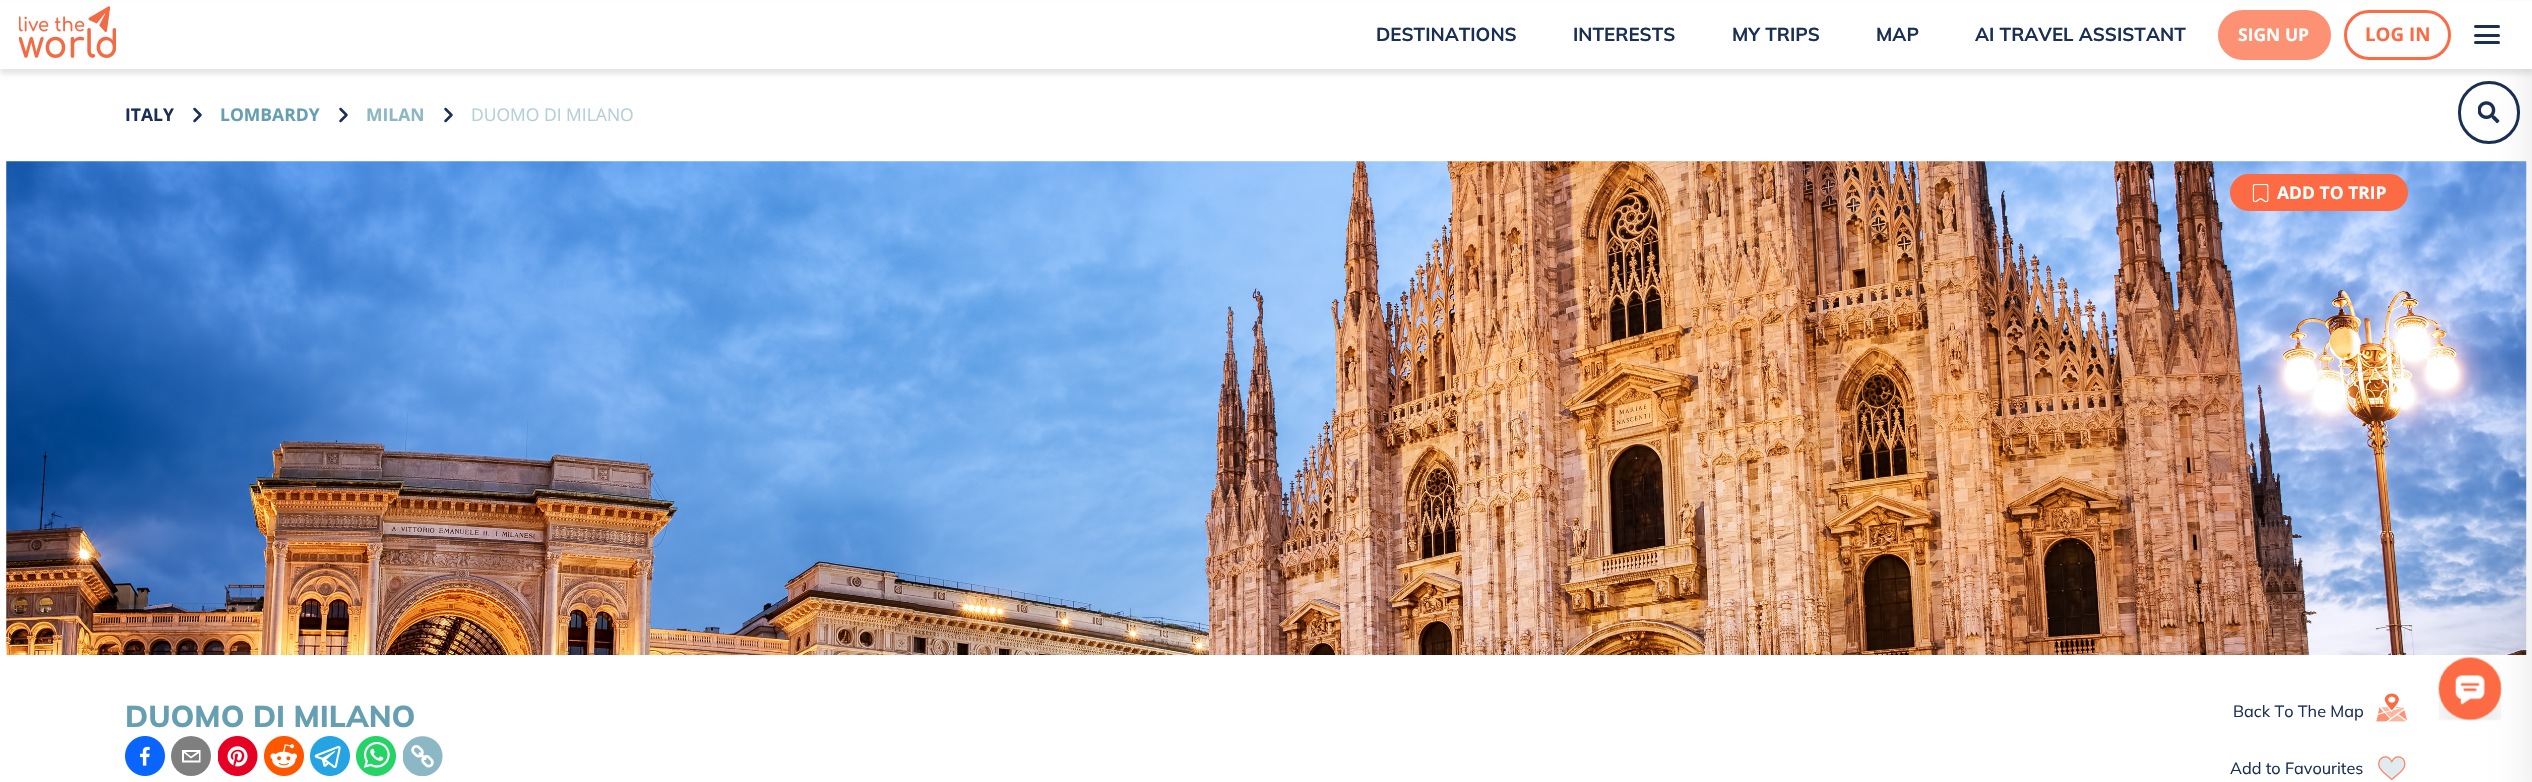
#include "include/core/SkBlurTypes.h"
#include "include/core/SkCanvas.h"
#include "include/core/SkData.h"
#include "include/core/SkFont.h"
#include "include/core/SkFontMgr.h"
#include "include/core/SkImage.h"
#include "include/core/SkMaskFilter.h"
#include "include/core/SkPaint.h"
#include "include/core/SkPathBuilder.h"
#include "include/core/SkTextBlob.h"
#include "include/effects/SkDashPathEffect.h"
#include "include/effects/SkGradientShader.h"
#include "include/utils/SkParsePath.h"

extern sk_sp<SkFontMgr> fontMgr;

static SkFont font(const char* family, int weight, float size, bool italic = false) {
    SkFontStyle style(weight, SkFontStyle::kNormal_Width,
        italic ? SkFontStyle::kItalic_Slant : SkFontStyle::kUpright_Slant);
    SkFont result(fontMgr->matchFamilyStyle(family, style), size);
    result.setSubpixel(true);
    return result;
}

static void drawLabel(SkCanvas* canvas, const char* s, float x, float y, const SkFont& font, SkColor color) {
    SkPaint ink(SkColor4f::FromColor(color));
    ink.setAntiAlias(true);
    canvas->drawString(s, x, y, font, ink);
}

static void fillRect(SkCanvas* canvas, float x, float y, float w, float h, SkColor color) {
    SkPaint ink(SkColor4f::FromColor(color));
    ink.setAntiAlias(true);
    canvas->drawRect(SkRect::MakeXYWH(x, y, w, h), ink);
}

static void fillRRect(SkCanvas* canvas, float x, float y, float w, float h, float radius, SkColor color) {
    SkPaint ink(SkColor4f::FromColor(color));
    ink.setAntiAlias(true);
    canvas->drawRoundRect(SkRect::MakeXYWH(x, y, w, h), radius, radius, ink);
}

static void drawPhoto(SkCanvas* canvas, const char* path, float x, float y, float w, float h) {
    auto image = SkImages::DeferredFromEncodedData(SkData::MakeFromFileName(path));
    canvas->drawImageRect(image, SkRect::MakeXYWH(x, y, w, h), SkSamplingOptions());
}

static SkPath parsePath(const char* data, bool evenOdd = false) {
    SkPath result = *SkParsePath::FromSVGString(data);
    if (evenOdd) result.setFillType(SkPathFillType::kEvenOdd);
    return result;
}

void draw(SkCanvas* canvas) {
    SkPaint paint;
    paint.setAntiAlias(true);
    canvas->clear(0xFFFFFFFF);
    paint.setStroke(true);
    paint.setStrokeWidth(3);
    paint.setColor(0xFF192F54);
    canvas->drawRoundRect(SkRect::MakeXYWH(2459.5f, 82.5f, 59, 60), 29.5f, 29.5f, paint);
    paint.setStroke(false);
    paint.setColor(0x1A000000);
    paint.setMaskFilter(SkMaskFilter::MakeBlur(kNormal_SkBlurStyle, 2.5f));
    canvas->drawRect(SkRect::MakeXYWH(0, 5, 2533, 69), paint);
    paint.setMaskFilter(nullptr);
    drawPhoto(canvas, "assets/img2.png", 2478, 101, 22, 23);
    drawPhoto(canvas, "assets/img3.png", 6, 161, 2521, 494);
    paint.setMaskFilter(SkMaskFilter::MakeBlur(kNormal_SkBlurStyle, 19));
    canvas->drawRect(SkRect::MakeXYWH(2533, 25, 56, 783), paint);
    paint.setMaskFilter(nullptr);
    fillRect(canvas, 0, 1, 2532, 68, 0xFFFFFFFF);
    drawPhoto(canvas, "assets/img1.png", 19, 6, 97, 52);
    SkFont font1 = font("Mulish", 700, 18.75f);
    drawLabel(canvas, "DESTINATIONS", 1376, 41, font1, 0xFF192F54);
    drawLabel(canvas, "INTERESTS", 1573, 41, font1, 0xFF192F54);
    drawLabel(canvas, "MY TRIPS", 1732, 41, font1, 0xFF192F54);
    drawLabel(canvas, "MAP", 1876, 41, font1, 0xFF192F54);
    drawLabel(canvas, "AI TRAVEL ASSISTANT", 1975, 41, font1, 0xFF192F54);
    paint.setColor(0xFFFD9173);
    canvas->drawRoundRect(SkRect::MakeXYWH(2219.5f, 11.5f, 110, 47), 23.5f, 23.5f, paint);
    paint.setStroke(true);
    canvas->drawRoundRect(SkRect::MakeXYWH(2219.5f, 11.5f, 110, 47), 23.5f, 23.5f, paint);
    SkFont font2 = font("Open Sans", 700, 17.5f);
    drawLabel(canvas, "SIGN UP", 2238, 41, font2, 0xFFFFFFFF);
    paint.setColor(0xFFFC6B43);
    canvas->drawRoundRect(SkRect::MakeXYWH(2345.5f, 11.5f, 104, 47), 23.5f, 23.5f, paint);
    SkFont font3 = font("Open Sans", 700, 18.75f);
    drawLabel(canvas, "LOG IN", 2365, 41, font3, 0xFFFC6B43);
    fillRRect(canvas, 2474, 25, 26, 3, 1.5f, 0xFF192F54);
    fillRRect(canvas, 2474, 34, 26, 3, 1.5f, 0xFF192F54);
    fillRRect(canvas, 2474, 41, 26, 3, 1.5f, 0xFF192F54);
    drawLabel(canvas, "ITALY", 125, 121, font2, 0xFF192F54);
    paint.setStrokeWidth(2.5f);
    paint.setStrokeCap(SkPaint::kRound_Cap);
    paint.setStrokeJoin(SkPaint::kRound_Join);
    paint.setColor(0xFF192F54);
    canvas->drawPath(parsePath("M194.5 121L200.5 115L194.5 109"), paint);
    drawLabel(canvas, "LOMBARDY", 220, 121, font2, 0xFF669FB2);
    canvas->drawPath(parsePath("M340.5 121L346.5 115L340.5 109"), paint);
    drawLabel(canvas, "MILAN", 366, 121, font2, 0xFF8CB7C5);
    canvas->drawPath(parsePath("M445.5 121L451.5 115L445.5 109"), paint);
    SkFont font4 = font("Open Sans", 400, 17.5f);
    drawLabel(canvas, "DUOMO DI MILANO", 471, 121, font4, 0xFFB3CFD8);
    paint.setStroke(false);
    paint.setColor(0xFFFC6B43);
    canvas->drawRoundRect(SkRect::MakeXYWH(2231.5f, 175.5f, 175, 34), 17, 17, paint);
    paint.setStroke(true);
    paint.setStrokeWidth(3);
    paint.setStrokeCap(SkPaint::kButt_Cap);
    paint.setStrokeJoin(SkPaint::kMiter_Join);
    canvas->drawRoundRect(SkRect::MakeXYWH(2231.5f, 175.5f, 175, 34), 17, 17, paint);
    drawPhoto(canvas, "assets/img4.png", 2252, 184, 17, 19);
    drawLabel(canvas, "ADD TO TRIP", 2277, 199, font2, 0xFFFFFFFF);
    SkFont font5 = font("Mulish", 800, 30);
    drawLabel(canvas, "DUOMO DI MILANO", 125, 727, font5, 0xFF669FB2);
    drawPhoto(canvas, "assets/img5.png", 125, 736, 40, 40);
    paint.setStroke(false);
    paint.setColor(0xFF7F7F7F);
    canvas->drawCircle(191, 756, 20, paint);
    paint.setColor(0xFFFFFFFF);
    canvas->drawPath(parsePath("M182 750V762.5H200.5V750ZM197 752L191 756.5L185.5 752ZM184 760.5V753L191 758.5L199 753V760.5Z"), paint);
    drawPhoto(canvas, "assets/img6.png", 218, 736, 40, 40);
    drawPhoto(canvas, "assets/img7.png", 264, 736, 40, 40);
    drawPhoto(canvas, "assets/img8.png", 310, 736, 40, 40);
    drawPhoto(canvas, "assets/img9.png", 356, 736, 40, 40);
    drawPhoto(canvas, "assets/img10.png", 403, 736, 40, 40);
    SkFont font6 = font("Mulish", 400, 16.25f);
    drawLabel(canvas, "Back To The Map", 2233, 717, font6, 0xFF192F54);
    drawPhoto(canvas, "assets/img11.png", 2376, 693, 31, 29);
    drawLabel(canvas, "Add to Favourites", 2230, 774, font6, 0xFF192F54);
    drawPhoto(canvas, "assets/img12.png", 2378, 756, 28, 24);
    drawPhoto(canvas, "assets/img13.png", 2438, 657, 64, 64);
}
